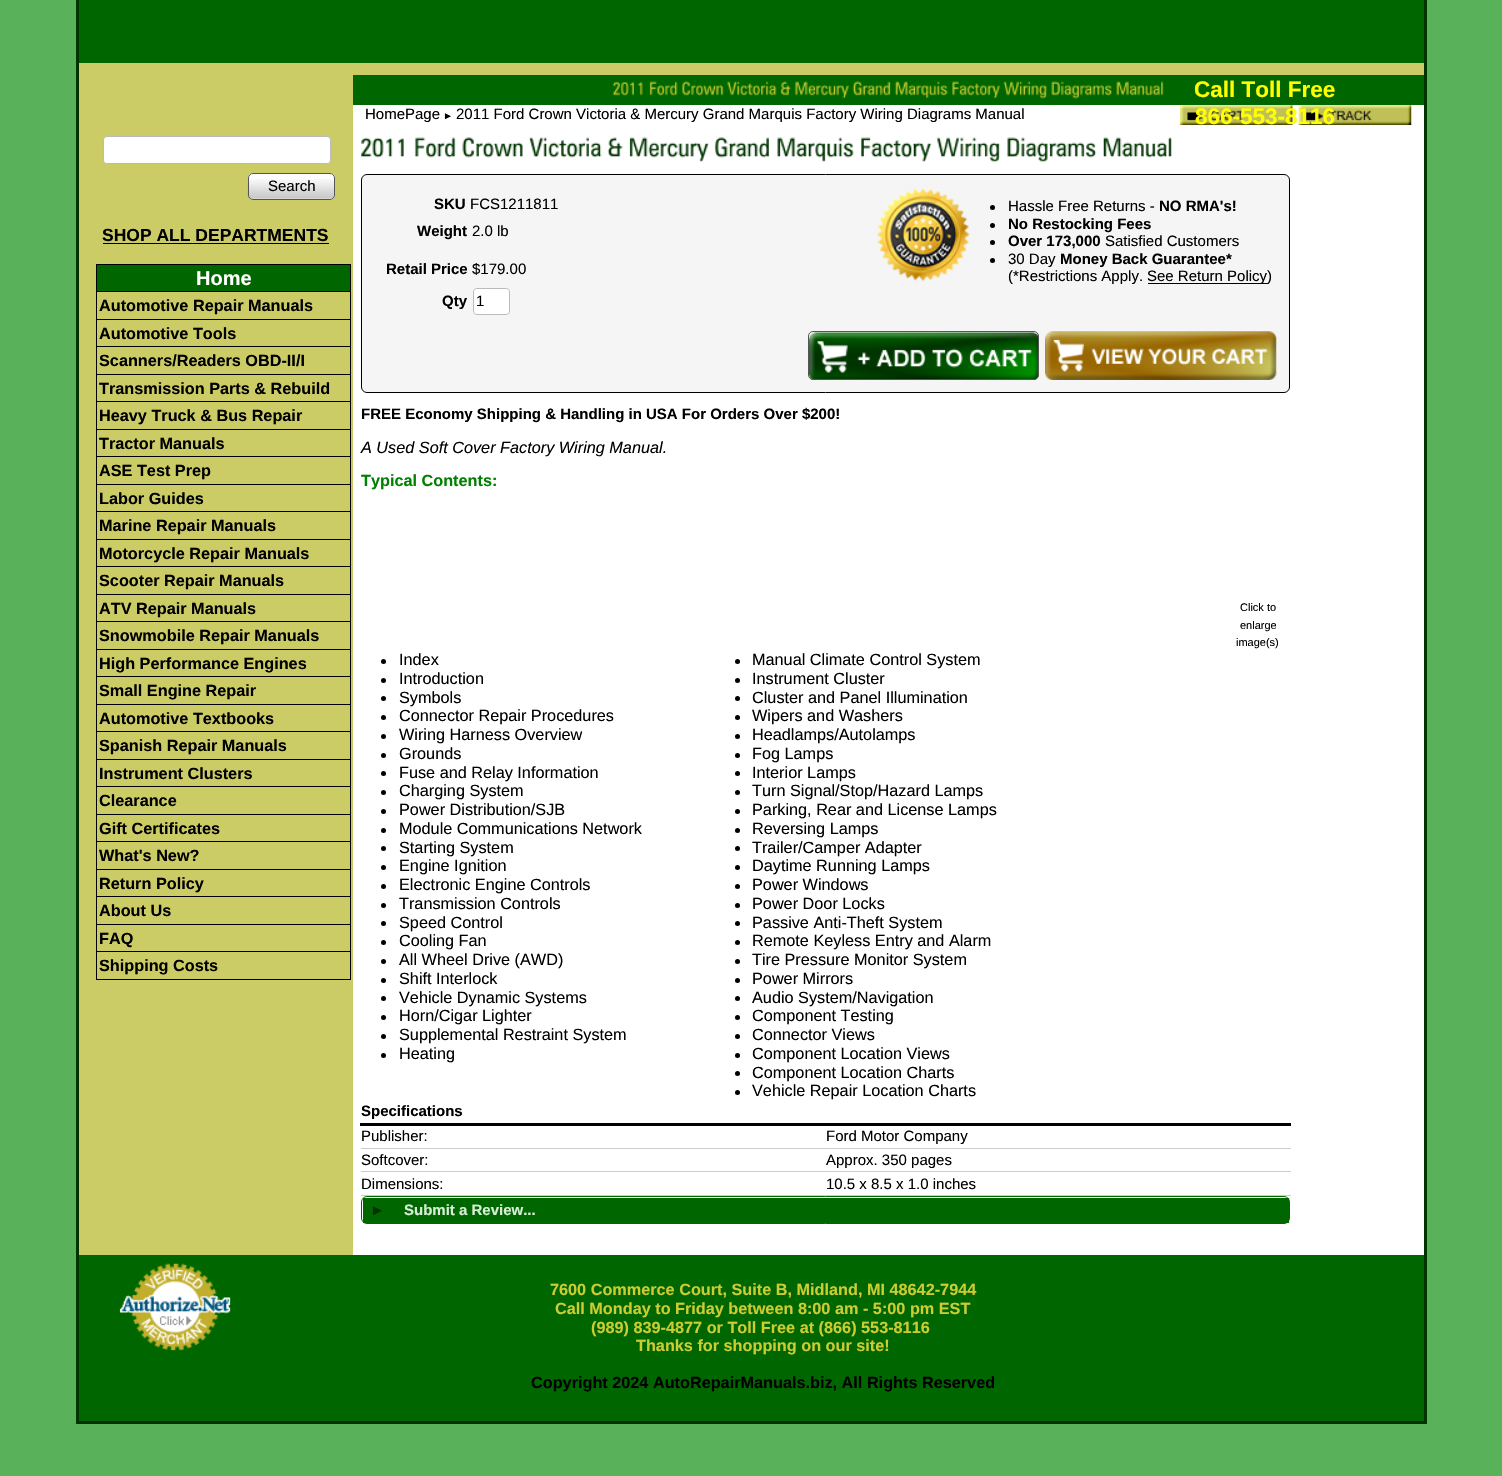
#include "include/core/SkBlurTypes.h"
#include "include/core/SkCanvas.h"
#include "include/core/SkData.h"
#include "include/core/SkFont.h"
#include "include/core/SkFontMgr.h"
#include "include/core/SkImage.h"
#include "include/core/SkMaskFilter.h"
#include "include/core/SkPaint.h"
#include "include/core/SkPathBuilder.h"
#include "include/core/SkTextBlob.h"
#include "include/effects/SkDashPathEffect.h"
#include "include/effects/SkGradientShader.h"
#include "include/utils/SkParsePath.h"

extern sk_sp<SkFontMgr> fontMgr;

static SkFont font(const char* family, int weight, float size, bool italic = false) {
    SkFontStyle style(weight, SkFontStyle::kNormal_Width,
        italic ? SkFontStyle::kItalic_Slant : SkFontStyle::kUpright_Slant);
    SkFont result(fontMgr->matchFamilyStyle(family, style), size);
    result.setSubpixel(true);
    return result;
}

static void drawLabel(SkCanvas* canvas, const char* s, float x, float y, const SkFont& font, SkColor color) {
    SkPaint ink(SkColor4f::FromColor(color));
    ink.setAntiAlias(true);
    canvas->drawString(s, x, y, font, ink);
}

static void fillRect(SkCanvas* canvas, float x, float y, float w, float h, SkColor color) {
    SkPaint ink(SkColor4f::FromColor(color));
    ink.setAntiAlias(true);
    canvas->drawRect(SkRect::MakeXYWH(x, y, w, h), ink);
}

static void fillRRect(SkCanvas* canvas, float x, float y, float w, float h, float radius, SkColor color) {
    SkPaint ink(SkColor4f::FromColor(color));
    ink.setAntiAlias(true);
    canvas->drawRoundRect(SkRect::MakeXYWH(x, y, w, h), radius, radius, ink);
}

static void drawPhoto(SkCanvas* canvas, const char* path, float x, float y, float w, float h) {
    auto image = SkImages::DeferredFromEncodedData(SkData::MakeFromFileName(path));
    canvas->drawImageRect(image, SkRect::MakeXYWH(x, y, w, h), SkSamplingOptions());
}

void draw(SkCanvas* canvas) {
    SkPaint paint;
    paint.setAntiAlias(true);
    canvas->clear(0xFF59B259);
    fillRect(canvas, 1424, 0, 3, 1424, 0xFF003300);
    fillRect(canvas, 76, 1421, 1350, 3, 0xFF003300);
    fillRect(canvas, 76, 0, 3, 1424, 0xFF003300);
    fillRect(canvas, 79, 63, 1345, 12, 0xFFCCCC66);
    fillRect(canvas, 353, 105, 1071, 33, 0xFFFFFFFF);
    SkFont font1 = font("Liberation Sans", 400, 15);
    drawLabel(canvas, "HomePage", 365, 119, font1, 0xFF000000);
    SkFont font2 = font("Liberation Sans", 400, 10);
    drawLabel(canvas, "►", 443, 119, font2, 0xFF000000);
    drawLabel(canvas, "2011 Ford Crown Victoria & Mercury Grand Marquis Factory Wiring Diagrams Manual", 456, 119, font1, 0xFF000000);
    drawPhoto(canvas, "assets/img1.png", 1180, 105, 113, 20);
    drawPhoto(canvas, "assets/img2.png", 1298, 105, 114, 20);
    fillRect(canvas, 79, 0, 1345, 63, 0xFF006600);
    fillRect(canvas, 353, 75, 1071, 30, 0xFF006600);
    SkFont font3 = font("Liberation Sans", 700, 22.5f);
    drawLabel(canvas, "Call Toll Free", 1194, 97, font3, 0xFFFFFF00);
    drawLabel(canvas, "866-553-8116", 1195, 124, font3, 0xFFFFFF00);
    drawPhoto(canvas, "assets/img3.png", 612, 81, 552, 18);
    fillRect(canvas, 79, 75, 274, 1180, 0xFFCCCC66);
    paint.setColor(0xFFFFFFFF);
    canvas->drawRoundRect(SkRect::MakeXYWH(103.5f, 136.5f, 227, 27), 3.5f, 3.5f, paint);
    paint.setStroke(true);
    paint.setStrokeWidth(1);
    paint.setColor(0xFFBBBBBB);
    canvas->drawRoundRect(SkRect::MakeXYWH(103.5f, 136.5f, 227, 27), 3.5f, 3.5f, paint);
    fillRRect(canvas, 104, 138, 226, 25, 4, 0xFFFFFFFF);
    fillRRect(canvas, 248, 173, 87, 27, 5, 0xFFFDFDFD);
    drawPhoto(canvas, "assets/img4.png", 247, 179, 88, 20);
    paint.setColor(0xFF555555);
    canvas->drawRoundRect(SkRect::MakeXYWH(248.5f, 173.5f, 86, 26), 4.5f, 4.5f, paint);
    drawLabel(canvas, "Search", 268, 191, font1, 0xFF000000);
    SkFont font4 = font("Liberation Sans", 700, 17.5f);
    drawLabel(canvas, "SHOP ALL DEPARTMENTS", 102, 241, font4, 0xFF000000);
    fillRect(canvas, 103, 243, 226, 1, 0xFF000000);
    fillRect(canvas, 97, 265, 253, 26, 0xFF006600);
    paint.setColor(0xFF000000);
    canvas->drawRect(SkRect::MakeXYWH(96.5f, 264.5f, 254, 28), paint);
    SkFont font5 = font("Liberation Sans", 700, 20);
    drawLabel(canvas, "Home", 196, 285, font5, 0xFFFFFFFF);
    fillRect(canvas, 97, 292, 253, 1, 0xFFCCCC66);
    canvas->drawRect(SkRect::MakeXYWH(96.5f, 291.5f, 254, 28), paint);
    SkFont font6 = font("Liberation Sans", 700, 16.25f);
    drawLabel(canvas, "Automotive Repair Manuals", 99, 311, font6, 0xFF000000);
    canvas->drawRect(SkRect::MakeXYWH(96.5f, 319.5f, 254, 28), paint);
    drawLabel(canvas, "Automotive Tools", 99, 339, font6, 0xFF000000);
    fillRect(canvas, 97, 347, 253, 1, 0xFFCCCC66);
    canvas->drawRect(SkRect::MakeXYWH(96.5f, 346.5f, 254, 28), paint);
    drawLabel(canvas, "Scanners/Readers OBD-II/I", 99, 366, font6, 0xFF000000);
    canvas->drawRect(SkRect::MakeXYWH(96.5f, 374.5f, 254, 28), paint);
    drawLabel(canvas, "Transmission Parts & Rebuild", 99, 394, font6, 0xFF000000);
    fillRect(canvas, 97, 402, 253, 1, 0xFFCCCC66);
    canvas->drawRect(SkRect::MakeXYWH(96.5f, 401.5f, 254, 28), paint);
    drawLabel(canvas, "Heavy Truck & Bus Repair", 99, 421, font6, 0xFF000000);
    canvas->drawRect(SkRect::MakeXYWH(96.5f, 429.5f, 254, 28), paint);
    drawLabel(canvas, "Tractor Manuals", 99, 449, font6, 0xFF000000);
    fillRect(canvas, 97, 457, 253, 1, 0xFFCCCC66);
    canvas->drawRect(SkRect::MakeXYWH(96.5f, 456.5f, 254, 28), paint);
    drawLabel(canvas, "ASE Test Prep", 99, 476, font6, 0xFF000000);
    canvas->drawRect(SkRect::MakeXYWH(96.5f, 484.5f, 254, 28), paint);
    drawLabel(canvas, "Labor Guides", 99, 504, font6, 0xFF000000);
    fillRect(canvas, 97, 512, 253, 1, 0xFFCCCC66);
    canvas->drawRect(SkRect::MakeXYWH(96.5f, 511.5f, 254, 28), paint);
    drawLabel(canvas, "Marine Repair Manuals", 99, 531, font6, 0xFF000000);
    canvas->drawRect(SkRect::MakeXYWH(96.5f, 539.5f, 254, 28), paint);
    drawLabel(canvas, "Motorcycle Repair Manuals", 99, 559, font6, 0xFF000000);
    fillRect(canvas, 97, 567, 253, 1, 0xFFCCCC66);
    canvas->drawRect(SkRect::MakeXYWH(96.5f, 566.5f, 254, 28), paint);
    drawLabel(canvas, "Scooter Repair Manuals", 99, 586, font6, 0xFF000000);
    canvas->drawRect(SkRect::MakeXYWH(96.5f, 594.5f, 254, 28), paint);
    drawLabel(canvas, "ATV Repair Manuals", 99, 614, font6, 0xFF000000);
    fillRect(canvas, 97, 622, 253, 1, 0xFFCCCC66);
    canvas->drawRect(SkRect::MakeXYWH(96.5f, 621.5f, 254, 28), paint);
    drawLabel(canvas, "Snowmobile Repair Manuals", 99, 641, font6, 0xFF000000);
    canvas->drawRect(SkRect::MakeXYWH(96.5f, 649.5f, 254, 28), paint);
    drawLabel(canvas, "High Performance Engines", 99, 669, font6, 0xFF000000);
    fillRect(canvas, 97, 677, 253, 1, 0xFFCCCC66);
    canvas->drawRect(SkRect::MakeXYWH(96.5f, 676.5f, 254, 28), paint);
    drawLabel(canvas, "Small Engine Repair", 99, 696, font6, 0xFF000000);
    canvas->drawRect(SkRect::MakeXYWH(96.5f, 704.5f, 254, 28), paint);
    drawLabel(canvas, "Automotive Textbooks", 99, 724, font6, 0xFF000000);
    fillRect(canvas, 97, 732, 253, 1, 0xFFCCCC66);
    canvas->drawRect(SkRect::MakeXYWH(96.5f, 731.5f, 254, 28), paint);
    drawLabel(canvas, "Spanish Repair Manuals", 99, 751, font6, 0xFF000000);
    canvas->drawRect(SkRect::MakeXYWH(96.5f, 759.5f, 254, 28), paint);
    drawLabel(canvas, "Instrument Clusters", 99, 779, font6, 0xFF000000);
    fillRect(canvas, 97, 787, 253, 1, 0xFFCCCC66);
    canvas->drawRect(SkRect::MakeXYWH(96.5f, 786.5f, 254, 28), paint);
    drawLabel(canvas, "Clearance", 99, 806, font6, 0xFF000000);
    canvas->drawRect(SkRect::MakeXYWH(96.5f, 814.5f, 254, 28), paint);
    drawLabel(canvas, "Gift Certificates", 99, 834, font6, 0xFF000000);
    fillRect(canvas, 97, 842, 253, 1, 0xFFCCCC66);
    canvas->drawRect(SkRect::MakeXYWH(96.5f, 841.5f, 254, 28), paint);
    drawLabel(canvas, "What's New?", 99, 861, font6, 0xFF000000);
    canvas->drawRect(SkRect::MakeXYWH(96.5f, 869.5f, 254, 28), paint);
    drawLabel(canvas, "Return Policy", 99, 889, font6, 0xFF000000);
    fillRect(canvas, 97, 897, 253, 1, 0xFFCCCC66);
    canvas->drawRect(SkRect::MakeXYWH(96.5f, 896.5f, 254, 28), paint);
    drawLabel(canvas, "About Us", 99, 916, font6, 0xFF000000);
    canvas->drawRect(SkRect::MakeXYWH(96.5f, 924.5f, 254, 28), paint);
    drawLabel(canvas, "FAQ", 99, 944, font6, 0xFF000000);
    fillRect(canvas, 97, 952, 253, 1, 0xFFCCCC66);
    canvas->drawRect(SkRect::MakeXYWH(96.5f, 951.5f, 254, 28), paint);
    drawLabel(canvas, "Shipping Costs", 99, 971, font6, 0xFF000000);
    fillRect(canvas, 353, 138, 1071, 1117, 0xFFFFFFFF);
    drawPhoto(canvas, "assets/img5.png", 361, 137, 811, 25);
    paint.setStroke(false);
    paint.setColor(0xFFF5F5F5);
    canvas->drawRoundRect(SkRect::MakeXYWH(361.5f, 174.5f, 928, 218), 5.5f, 5.5f, paint);
    paint.setStroke(true);
    paint.setColor(0xFF000000);
    canvas->drawRoundRect(SkRect::MakeXYWH(361.5f, 174.5f, 928, 218), 5.5f, 5.5f, paint);
    SkFont font7 = font("Liberation Sans", 700, 15);
    drawLabel(canvas, "SKU", 434, 209, font7, 0xFF000000);
    drawLabel(canvas, "FCS1211811", 470, 209, font1, 0xFF000000);
    drawLabel(canvas, "Weight", 417, 236, font7, 0xFF000000);
    drawLabel(canvas, "2.0 lb", 472, 236, font1, 0xFF000000);
    drawLabel(canvas, "Retail Price", 386, 274, font7, 0xFF000000);
    drawLabel(canvas, "$179.00", 472, 274, font1, 0xFF000000);
    drawLabel(canvas, "Qty", 442, 306, font7, 0xFF000000);
    paint.setStroke(false);
    paint.setColor(0xFFFFFFFF);
    canvas->drawRoundRect(SkRect::MakeXYWH(473.5f, 288.5f, 36, 26), 3.5f, 3.5f, paint);
    paint.setStroke(true);
    paint.setColor(0xFFBBBBBB);
    canvas->drawRoundRect(SkRect::MakeXYWH(473.5f, 288.5f, 36, 26), 3.5f, 3.5f, paint);
    fillRRect(canvas, 474, 289, 35, 25, 4, 0xFFFFFFFF);
    drawLabel(canvas, "1", 476, 306, font1, 0xFF000000);
    drawPhoto(canvas, "assets/img6.png", 808, 332, 231, 48);
    paint.setColor(0xFF555555);
    canvas->drawRoundRect(SkRect::MakeXYWH(808.5f, 331.5f, 230, 48), 4.5f, 4.5f, paint);
    drawPhoto(canvas, "assets/img7.png", 1045, 331, 232, 49);
    drawPhoto(canvas, "assets/img8.png", 876, 188, 94, 94);
    paint.setStroke(false);
    paint.setColor(0xFF000000);
    canvas->drawCircle(992.5f, 207.5f, 2.5f, paint);
    drawLabel(canvas, "Hassle Free Returns -", 1008, 211, font1, 0xFF000000);
    drawLabel(canvas, "NO RMA's!", 1159, 211, font7, 0xFF000000);
    canvas->drawCircle(992.5f, 225.5f, 2.5f, paint);
    drawLabel(canvas, "No Restocking Fees", 1008, 229, font7, 0xFF000000);
    canvas->drawCircle(992.5f, 242.5f, 2.5f, paint);
    drawLabel(canvas, "Over 173,000", 1008, 246, font7, 0xFF000000);
    drawLabel(canvas, "Satisfied Customers", 1105, 246, font1, 0xFF000000);
    canvas->drawCircle(992.5f, 260.5f, 2.5f, paint);
    drawLabel(canvas, "30 Day", 1008, 264, font1, 0xFF000000);
    drawLabel(canvas, "Money Back Guarantee*", 1060, 264, font7, 0xFF000000);
    drawLabel(canvas, "(*Restrictions Apply.", 1008, 281, font1, 0xFF000000);
    fillRect(canvas, 1148, 283, 120, 1, 0xFF000000);
    drawLabel(canvas, "See Return Policy)", 1147, 281, font1, 0xFF000000);
    drawLabel(canvas, "FREE Economy Shipping & Handling in USA For Orders Over $200!", 361, 419, font7, 0xFF000000);
    SkFont font8 = font("Liberation Sans", 400, 16.25f, true);
    drawLabel(canvas, "A Used Soft Cover Factory Wiring Manual.", 361, 453, font8, 0xFF000000);
    drawLabel(canvas, "Typical Contents:", 361, 486, font6, 0xFF008000);
    canvas->drawCircle(383.5f, 661.5f, 2.5f, paint);
    SkFont font9 = font("Liberation Sans", 400, 16.25f);
    drawLabel(canvas, "Index", 399, 665, font9, 0xFF000000);
    canvas->drawCircle(383.5f, 680.5f, 2.5f, paint);
    drawLabel(canvas, "Introduction", 399, 684, font9, 0xFF000000);
    canvas->drawCircle(383.5f, 698.5f, 2.5f, paint);
    drawLabel(canvas, "Symbols", 399, 703, font9, 0xFF000000);
    canvas->drawCircle(383.5f, 717.5f, 2.5f, paint);
    drawLabel(canvas, "Connector Repair Procedures", 399, 721, font9, 0xFF000000);
    canvas->drawCircle(383.5f, 736.5f, 2.5f, paint);
    drawLabel(canvas, "Wiring Harness Overview", 399, 740, font9, 0xFF000000);
    canvas->drawCircle(383.5f, 755.5f, 2.5f, paint);
    drawLabel(canvas, "Grounds", 399, 759, font9, 0xFF000000);
    canvas->drawCircle(383.5f, 773.5f, 2.5f, paint);
    drawLabel(canvas, "Fuse and Relay Information", 399, 778, font9, 0xFF000000);
    canvas->drawCircle(383.5f, 792.5f, 2.5f, paint);
    drawLabel(canvas, "Charging System", 399, 796, font9, 0xFF000000);
    canvas->drawCircle(383.5f, 811.5f, 2.5f, paint);
    drawLabel(canvas, "Power Distribution/SJB", 399, 815, font9, 0xFF000000);
    canvas->drawCircle(383.5f, 830.5f, 2.5f, paint);
    drawLabel(canvas, "Module Communications Network", 399, 834, font9, 0xFF000000);
    canvas->drawCircle(383.5f, 848.5f, 2.5f, paint);
    drawLabel(canvas, "Starting System", 399, 853, font9, 0xFF000000);
    canvas->drawCircle(383.5f, 867.5f, 2.5f, paint);
    drawLabel(canvas, "Engine Ignition", 399, 871, font9, 0xFF000000);
    canvas->drawCircle(383.5f, 886.5f, 2.5f, paint);
    drawLabel(canvas, "Electronic Engine Controls", 399, 890, font9, 0xFF000000);
    canvas->drawCircle(383.5f, 905.5f, 2.5f, paint);
    drawLabel(canvas, "Transmission Controls", 399, 909, font9, 0xFF000000);
    canvas->drawCircle(383.5f, 923.5f, 2.5f, paint);
    drawLabel(canvas, "Speed Control", 399, 928, font9, 0xFF000000);
    canvas->drawCircle(383.5f, 942.5f, 2.5f, paint);
    drawLabel(canvas, "Cooling Fan", 399, 946, font9, 0xFF000000);
    canvas->drawCircle(383.5f, 961.5f, 2.5f, paint);
    drawLabel(canvas, "All Wheel Drive (AWD)", 399, 965, font9, 0xFF000000);
    canvas->drawCircle(383.5f, 980.5f, 2.5f, paint);
    drawLabel(canvas, "Shift Interlock", 399, 984, font9, 0xFF000000);
    canvas->drawCircle(383.5f, 998.5f, 2.5f, paint);
    drawLabel(canvas, "Vehicle Dynamic Systems", 399, 1003, font9, 0xFF000000);
    canvas->drawCircle(383.5f, 1017.5f, 2.5f, paint);
    drawLabel(canvas, "Horn/Cigar Lighter", 399, 1021, font9, 0xFF000000);
    canvas->drawCircle(383.5f, 1036.5f, 2.5f, paint);
    drawLabel(canvas, "Supplemental Restraint System", 399, 1040, font9, 0xFF000000);
    canvas->drawCircle(383.5f, 1055.5f, 2.5f, paint);
    drawLabel(canvas, "Heating", 399, 1059, font9, 0xFF000000);
    canvas->drawCircle(737.5f, 661.5f, 2.5f, paint);
    drawLabel(canvas, "Manual Climate Control System", 752, 665, font9, 0xFF000000);
    canvas->drawCircle(737.5f, 680.5f, 2.5f, paint);
    drawLabel(canvas, "Instrument Cluster", 752, 684, font9, 0xFF000000);
    canvas->drawCircle(737.5f, 698.5f, 2.5f, paint);
    drawLabel(canvas, "Cluster and Panel Illumination", 752, 703, font9, 0xFF000000);
    canvas->drawCircle(737.5f, 717.5f, 2.5f, paint);
    drawLabel(canvas, "Wipers and Washers", 752, 721, font9, 0xFF000000);
    canvas->drawCircle(737.5f, 736.5f, 2.5f, paint);
    drawLabel(canvas, "Headlamps/Autolamps", 752, 740, font9, 0xFF000000);
    canvas->drawCircle(737.5f, 755.5f, 2.5f, paint);
    drawLabel(canvas, "Fog Lamps", 752, 759, font9, 0xFF000000);
    canvas->drawCircle(737.5f, 773.5f, 2.5f, paint);
    drawLabel(canvas, "Interior Lamps", 752, 778, font9, 0xFF000000);
    canvas->drawCircle(737.5f, 792.5f, 2.5f, paint);
    drawLabel(canvas, "Turn Signal/Stop/Hazard Lamps", 752, 796, font9, 0xFF000000);
    canvas->drawCircle(737.5f, 811.5f, 2.5f, paint);
    drawLabel(canvas, "Parking, Rear and License Lamps", 752, 815, font9, 0xFF000000);
    canvas->drawCircle(737.5f, 830.5f, 2.5f, paint);
    drawLabel(canvas, "Reversing Lamps", 752, 834, font9, 0xFF000000);
    canvas->drawCircle(737.5f, 848.5f, 2.5f, paint);
    drawLabel(canvas, "Trailer/Camper Adapter", 752, 853, font9, 0xFF000000);
    canvas->drawCircle(737.5f, 867.5f, 2.5f, paint);
    drawLabel(canvas, "Daytime Running Lamps", 752, 871, font9, 0xFF000000);
    canvas->drawCircle(737.5f, 886.5f, 2.5f, paint);
    drawLabel(canvas, "Power Windows", 752, 890, font9, 0xFF000000);
    canvas->drawCircle(737.5f, 905.5f, 2.5f, paint);
    drawLabel(canvas, "Power Door Locks", 752, 909, font9, 0xFF000000);
    canvas->drawCircle(737.5f, 923.5f, 2.5f, paint);
    drawLabel(canvas, "Passive Anti-Theft System", 752, 928, font9, 0xFF000000);
    canvas->drawCircle(737.5f, 942.5f, 2.5f, paint);
    drawLabel(canvas, "Remote Keyless Entry and Alarm", 752, 946, font9, 0xFF000000);
    canvas->drawCircle(737.5f, 961.5f, 2.5f, paint);
    drawLabel(canvas, "Tire Pressure Monitor System", 752, 965, font9, 0xFF000000);
    canvas->drawCircle(737.5f, 980.5f, 2.5f, paint);
    drawLabel(canvas, "Power Mirrors", 752, 984, font9, 0xFF000000);
    canvas->drawCircle(737.5f, 998.5f, 2.5f, paint);
    drawLabel(canvas, "Audio System/Navigation", 752, 1003, font9, 0xFF000000);
    canvas->drawCircle(737.5f, 1017.5f, 2.5f, paint);
    drawLabel(canvas, "Component Testing", 752, 1021, font9, 0xFF000000);
    canvas->drawCircle(737.5f, 1036.5f, 2.5f, paint);
    drawLabel(canvas, "Connector Views", 752, 1040, font9, 0xFF000000);
    canvas->drawCircle(737.5f, 1055.5f, 2.5f, paint);
    drawLabel(canvas, "Component Location Views", 752, 1059, font9, 0xFF000000);
    canvas->drawCircle(737.5f, 1073.5f, 2.5f, paint);
    drawLabel(canvas, "Component Location Charts", 752, 1078, font9, 0xFF000000);
    canvas->drawCircle(737.5f, 1092.5f, 2.5f, paint);
    drawLabel(canvas, "Vehicle Repair Location Charts", 752, 1096, font9, 0xFF000000);
    SkFont font10 = font("Liberation Sans", 400, 11);
    drawLabel(canvas, "Click to", 1240, 611, font10, 0xFF000000);
    drawLabel(canvas, "enlarge", 1240, 629, font10, 0xFF000000);
    drawLabel(canvas, "image(s)", 1236, 646, font10, 0xFF000000);
    fillRect(canvas, 360, 1123, 931, 3, 0xFF000000);
    drawLabel(canvas, "Specifications", 361, 1116, font7, 0xFF000000);
    fillRect(canvas, 361, 1148, 930, 1, 0xFFCCCCCC);
    drawLabel(canvas, "Publisher:", 361, 1141, font1, 0xFF000000);
    drawLabel(canvas, "Ford Motor Company", 826, 1141, font1, 0xFF000000);
    fillRect(canvas, 361, 1171, 930, 1, 0xFFCCCCCC);
    drawLabel(canvas, "Softcover:", 361, 1165, font1, 0xFF000000);
    drawLabel(canvas, "Approx. 350 pages", 826, 1165, font1, 0xFF000000);
    fillRect(canvas, 361, 1195, 930, 1, 0xFFCCCCCC);
    drawLabel(canvas, "Dimensions:", 361, 1189, font1, 0xFF000000);
    drawLabel(canvas, "10.5 x 8.5 x 1.0 inches", 826, 1189, font1, 0xFF000000);
    paint.setStroke(true);
    paint.setColor(0xFF006600);
    canvas->drawRoundRect(SkRect::MakeXYWH(361.5f, 1196.5f, 928, 27), 5.5f, 5.5f, paint);
    fillRect(canvas, 363, 1198, 926, 25, 0xFF006600);
    drawLabel(canvas, "►", 370, 1215, font7, 0xFF003300);
    drawLabel(canvas, "Submit a Review...", 404, 1215, font7, 0xFFD7EFD7);
    fillRect(canvas, 79, 1255, 1345, 166, 0xFF006600);
    drawPhoto(canvas, "assets/img9.png", 119, 1263, 112, 88);
    drawLabel(canvas, "7600 Commerce Court, Suite B, Midland, MI 48642-7944", 550, 1295, font6, 0xFFCCCC33);
    drawLabel(canvas, "Call Monday to Friday between 8:00 am - 5:00 pm EST", 555, 1314, font6, 0xFFCCCC33);
    drawLabel(canvas, "(989) 839-4877 or Toll Free at (866) 553-8116", 591, 1333, font6, 0xFFCCCC33);
    drawLabel(canvas, "Thanks for shopping on our site!", 636, 1351, font6, 0xFFCCCC33);
    drawLabel(canvas, "Copyright 2024 AutoRepairManuals.biz, All Rights Reserved", 531, 1388, font6, 0xFF000000);
}
